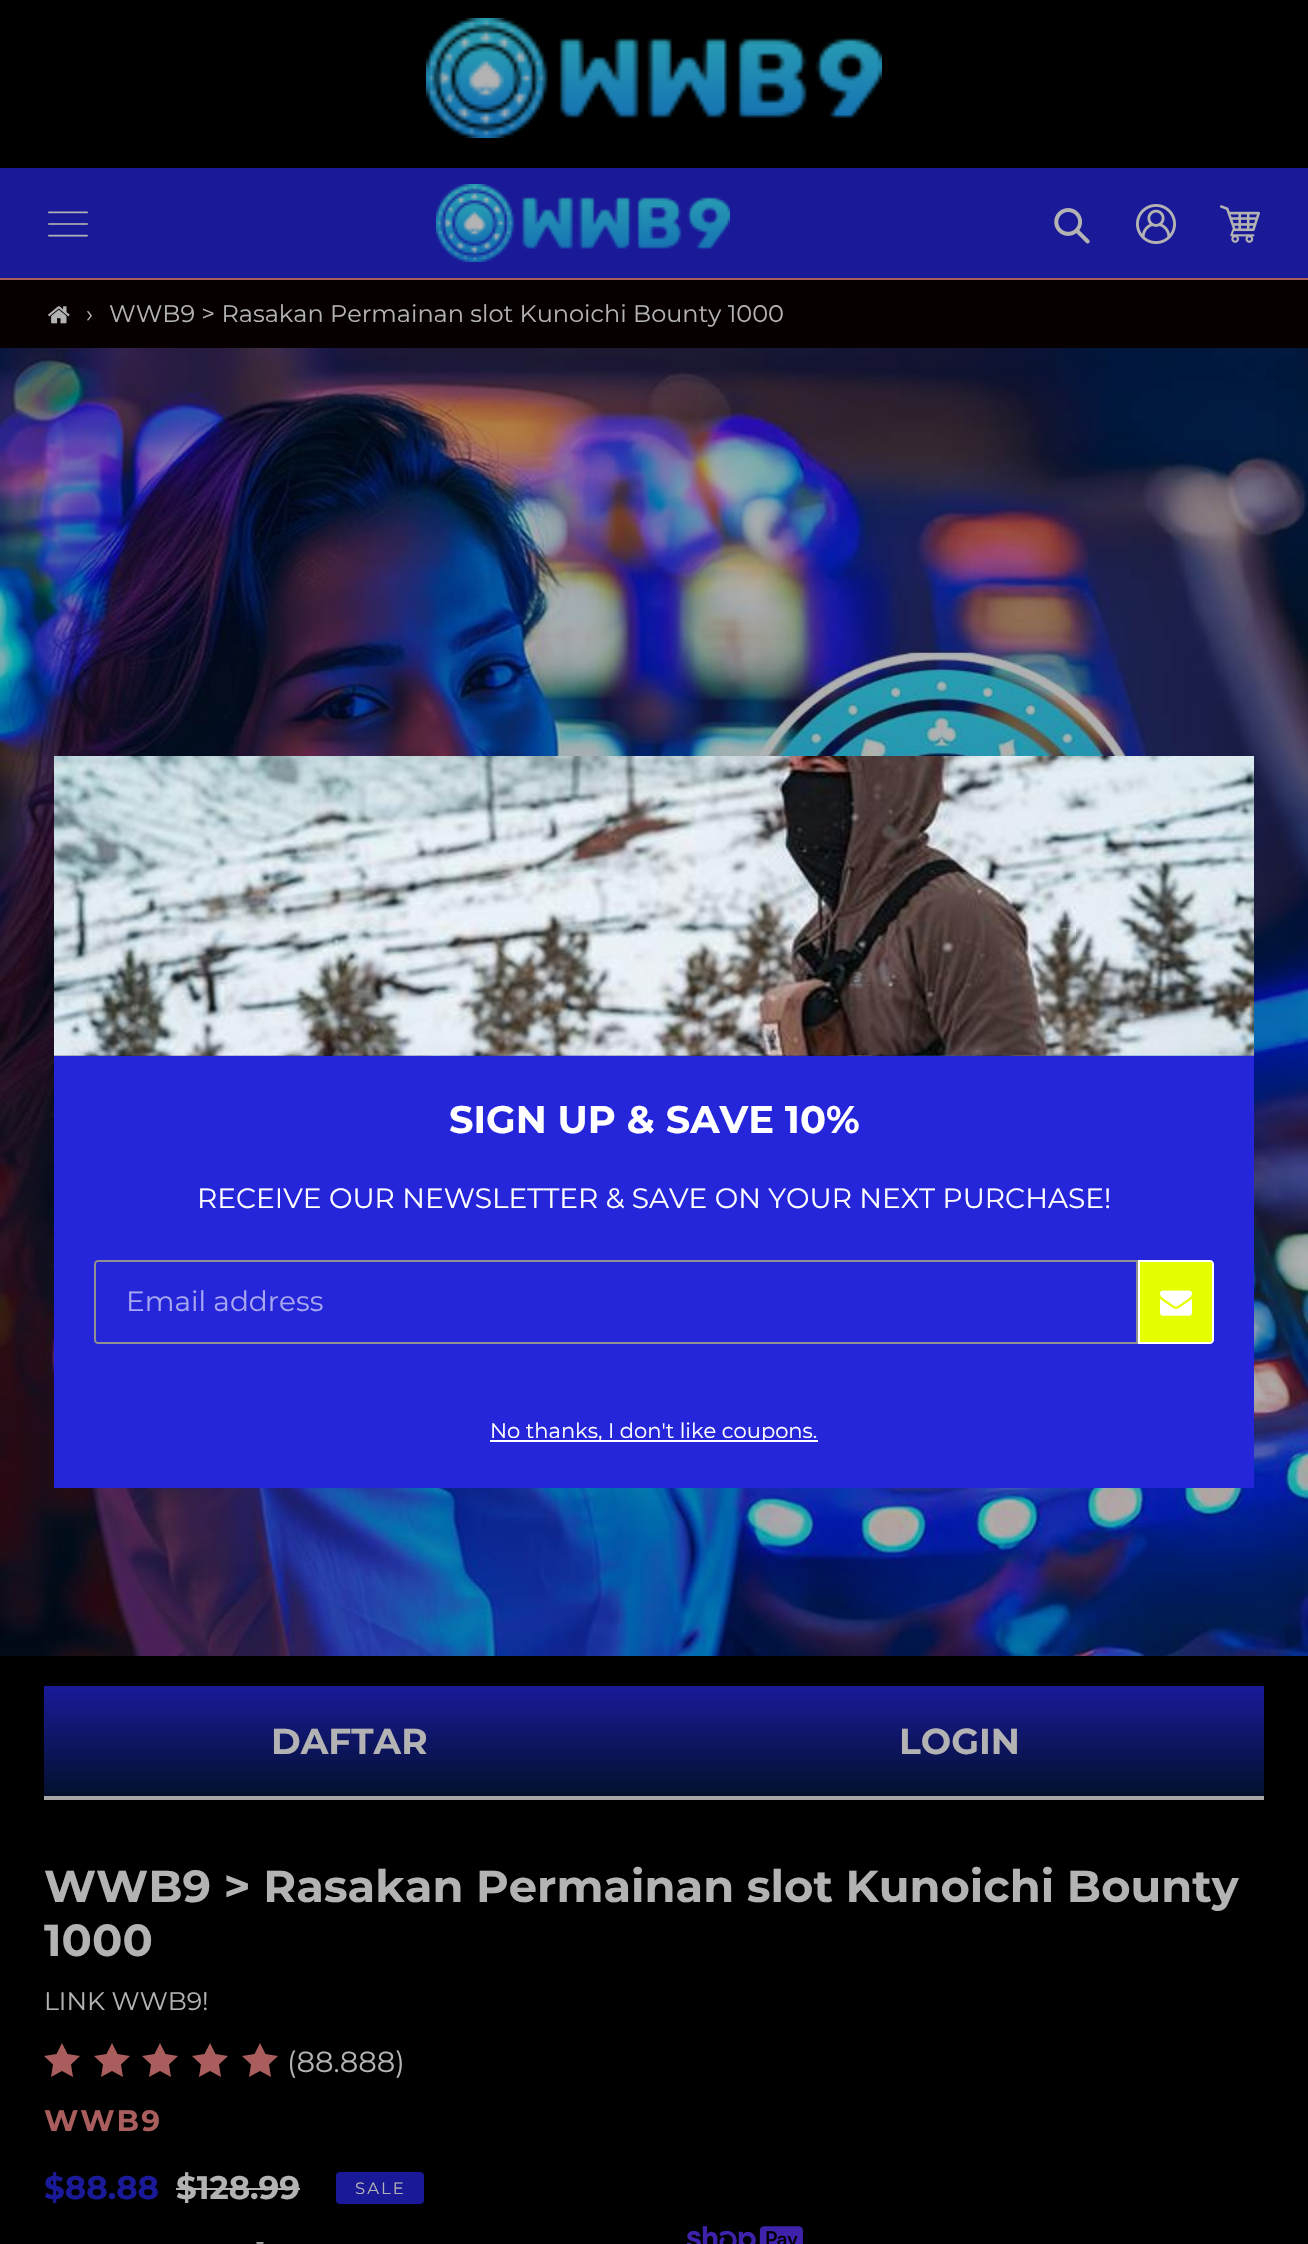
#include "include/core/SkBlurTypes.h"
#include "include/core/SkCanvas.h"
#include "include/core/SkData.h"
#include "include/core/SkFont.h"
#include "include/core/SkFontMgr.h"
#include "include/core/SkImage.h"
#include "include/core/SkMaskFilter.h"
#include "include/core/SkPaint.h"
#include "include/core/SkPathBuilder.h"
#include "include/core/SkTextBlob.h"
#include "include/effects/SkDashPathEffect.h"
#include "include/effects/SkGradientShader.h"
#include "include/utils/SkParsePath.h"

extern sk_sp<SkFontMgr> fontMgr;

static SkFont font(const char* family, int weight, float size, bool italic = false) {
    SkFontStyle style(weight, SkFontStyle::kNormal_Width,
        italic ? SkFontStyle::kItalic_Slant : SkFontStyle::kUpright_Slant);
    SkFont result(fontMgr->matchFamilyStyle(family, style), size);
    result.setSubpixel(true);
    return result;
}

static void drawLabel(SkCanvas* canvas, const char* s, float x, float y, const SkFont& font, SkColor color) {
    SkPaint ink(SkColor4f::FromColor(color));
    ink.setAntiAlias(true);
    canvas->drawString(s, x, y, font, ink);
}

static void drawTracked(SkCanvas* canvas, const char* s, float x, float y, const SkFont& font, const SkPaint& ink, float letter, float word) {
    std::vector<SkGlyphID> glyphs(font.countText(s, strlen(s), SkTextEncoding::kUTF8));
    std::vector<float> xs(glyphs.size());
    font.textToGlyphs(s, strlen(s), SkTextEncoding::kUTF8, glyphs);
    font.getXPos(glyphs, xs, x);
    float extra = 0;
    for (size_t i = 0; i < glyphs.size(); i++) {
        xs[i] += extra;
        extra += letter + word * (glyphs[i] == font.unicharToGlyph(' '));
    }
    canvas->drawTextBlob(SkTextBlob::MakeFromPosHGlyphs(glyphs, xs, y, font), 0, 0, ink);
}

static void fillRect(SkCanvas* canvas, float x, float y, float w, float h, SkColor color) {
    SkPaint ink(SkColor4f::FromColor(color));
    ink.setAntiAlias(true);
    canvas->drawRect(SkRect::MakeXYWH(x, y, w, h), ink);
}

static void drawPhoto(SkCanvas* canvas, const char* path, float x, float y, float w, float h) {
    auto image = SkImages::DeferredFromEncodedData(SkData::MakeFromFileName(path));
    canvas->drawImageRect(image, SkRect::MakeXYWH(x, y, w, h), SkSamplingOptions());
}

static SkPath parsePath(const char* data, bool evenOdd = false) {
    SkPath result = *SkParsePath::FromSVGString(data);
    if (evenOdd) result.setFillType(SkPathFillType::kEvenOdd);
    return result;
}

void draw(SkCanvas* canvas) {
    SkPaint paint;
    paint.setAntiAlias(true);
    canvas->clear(0xFF000000);
    drawPhoto(canvas, "assets/img1.png", 426, 18, 456, 120);
    fillRect(canvas, 0, 168, 1308, 110, 0xFF1A1A99);
    fillRect(canvas, 0, 278, 1308, 2, 0xFFAA5D5D);
    drawPhoto(canvas, "assets/img2.png", 48, 211, 40, 26);
    drawPhoto(canvas, "assets/img3.png", 436, 184, 294, 78);
    drawPhoto(canvas, "assets/img4.png", 1054, 208, 36, 36);
    drawPhoto(canvas, "assets/img5.png", 1136, 204, 40, 40);
    drawPhoto(canvas, "assets/img6.png", 1220, 205, 40, 38);
    fillRect(canvas, 0, 280, 1308, 68, 0xFF060000);
    drawPhoto(canvas, "assets/img7.png", 48, 306, 22, 18);
    SkFont font1 = font("Montserrat", 400, 24);
    drawLabel(canvas, "›", 86, 322, font1, 0xFFB3B3B3);
    drawLabel(canvas, "WWB9 > Rasakan Permainan slot Kunoichi Bounty 1000", 109, 322, font1, 0xFFB3B3B3);
    drawPhoto(canvas, "assets/img8.png", 0, 348, 1308, 1308);
    {
        const SkColor colors[] = {0xFF1A1A99, 0xFF021029};
        const float stops[] = {0, 1};
        const SkPoint ends[] = {{349, 1686}, {349, 1800}};
        paint.setShader(SkGradientShader::MakeLinear(ends, colors, stops, 2, SkTileMode::kClamp));
        paint.setAlpha(255);
    }
    canvas->drawRect(SkRect::MakeXYWH(44, 1686, 610, 110), paint);
    fillRect(canvas, 44, 1796, 1220, 4, 0xFFA6A7A6);
    SkFont font2 = font("Montserrat", 700, 36);
    drawLabel(canvas, "DAFTAR", 271, 1754, font2, 0xFFB3B3B3);
    {
        const SkColor colors[] = {0xFF1A1A99, 0xFF021029};
        const float stops[] = {0, 1};
        const SkPoint ends[] = {{959, 1686}, {959, 1800}};
        paint.setShader(SkGradientShader::MakeLinear(ends, colors, stops, 2, SkTileMode::kClamp));
        paint.setAlpha(255);
    }
    canvas->drawRect(SkRect::MakeXYWH(654, 1686, 610, 110), paint);
    drawLabel(canvas, "LOGIN", 899, 1754, font2, 0xFFB3B3B3);
    SkFont font3 = font("Montserrat", 700, 44.8f);
    drawLabel(canvas, "WWB9 > Rasakan Permainan slot Kunoichi Bounty", 44, 1902, font3, 0xFFB3B3B3);
    drawLabel(canvas, "1000", 44, 1956, font3, 0xFFB3B3B3);
    SkFont font4 = font("Montserrat", 400, 25.25f);
    drawLabel(canvas, "LINK WWB9!", 44, 2010, font4, 0xFFB3B3B3);
    paint.setShader(nullptr);
    paint.setColor(0xFFAA5D5D);
    canvas->drawPath(parsePath("M62 2043L67.5 2054L80 2056L71 2064.5L73 2077L62 2071L51 2077L53 2064.5L44 2056L56.5 2054Z"), paint);
    canvas->drawPath(parsePath("M112 2043L117.5 2054L130 2056L121 2064.5L123 2077L112 2071L101 2077L103 2064.5L94 2056L106.5 2054Z"), paint);
    canvas->drawPath(parsePath("M160 2043L165.5 2054L178 2056L169 2064.5L171 2077L160 2071L149 2077L151 2064.5L142 2056L154.5 2054Z"), paint);
    canvas->drawPath(parsePath("M210 2043L215.5 2054L228 2056L219 2064.5L221 2077L210 2071L199 2077L201 2064.5L192 2056L204.5 2054Z"), paint);
    canvas->drawPath(parsePath("M260 2043L265.5 2054L278 2056L269 2064.5L271 2077L260 2071L249 2077L251 2064.5L242 2056L254.5 2054Z"), paint);
    SkFont font5 = font("Montserrat", 400, 29);
    drawLabel(canvas, "(88.888)", 287, 2072, font5, 0xFFB3B3B3);
    SkFont font6 = font("Montserrat", 700, 29.5f);
    drawTracked(canvas, "WWB9", 44, 2131, font6, paint, 2, 0);
    SkFont font7 = font("Montserrat", 700, 32.5f);
    drawLabel(canvas, "$88.88", 44, 2199, font7, 0xFF1A1A99);
    drawLabel(canvas, "$128.99", 176, 2199, font7, 0xFFB3B3B3);
    fillRect(canvas, 176, 2188, 124, 2, 0xFFB3B3B3);
    paint.setColor(0xFF1A1A99);
    canvas->drawRoundRect(SkRect::MakeXYWH(337, 2173, 86, 30), 3, 3, paint);
    paint.setStroke(true);
    paint.setStrokeWidth(2);
    canvas->drawRoundRect(SkRect::MakeXYWH(337, 2173, 86, 30), 3, 3, paint);
    SkFont font8 = font("Montserrat", 400, 16.5f);
    paint.setStroke(false);
    paint.setColor(0xFFB3B3B3);
    drawTracked(canvas, "SALE", 355, 2194, font8, paint, 2, 0);
    SkFont font9 = font("Montserrat", 400, 26);
    drawLabel(canvas, "-", 255, 2250, font9, 0xFFB3B3B3);
    drawPhoto(canvas, "assets/img9.png", 686, 2226, 117, 18);
    drawPhoto(canvas, "assets/img10.png", 54, 756, 1200, 300);
    fillRect(canvas, 54, 1056, 1200, 432, 0xFF2525DA);
    SkFont font10 = font("Montserrat", 700, 38.4f);
    drawLabel(canvas, "SIGN UP & SAVE 10%", 449, 1133, font10, 0xFFFFFFFF);
    SkFont font11 = font("Montserrat", 400, 28);
    drawLabel(canvas, "RECEIVE OUR NEWSLETTER & SAVE ON YOUR NEXT PURCHASE!", 197, 1208, font11, 0xFFFFFFFF);
    paint.setStroke(true);
    paint.setColor(0xFF909090);
    canvas->drawPath(parsePath("M98 1261H1137V1343H98C96.5 1343 95 1341.5 95 1340V1264C95 1262.5 96.5 1261 98 1261Z"), paint);
    drawLabel(canvas, "Email address", 126, 1311, font11, 0xFFA8A8F0);
    paint.setStroke(false);
    paint.setColor(0xFFE5FF00);
    canvas->drawPath(parsePath("M1139 1261H1210C1211.5 1261 1213 1262.5 1213 1264V1340C1213 1341.5 1211.5 1343 1210 1343H1139Z"), paint);
    paint.setStroke(true);
    paint.setColor(0xFFFFFFFF);
    canvas->drawPath(parsePath("M1139 1261H1210C1211.5 1261 1213 1262.5 1213 1264V1340C1213 1341.5 1211.5 1343 1210 1343H1139Z"), paint);
    drawPhoto(canvas, "assets/img11.png", 1160, 1290, 32, 26);
    fillRect(canvas, 490, 1440, 328, 2, 0xFFFFFFFF);
    SkFont font12 = font("Montserrat", 400, 21);
    drawLabel(canvas, "No thanks, I don't like coupons.", 490, 1438, font12, 0xFFFFFFFF);
}
